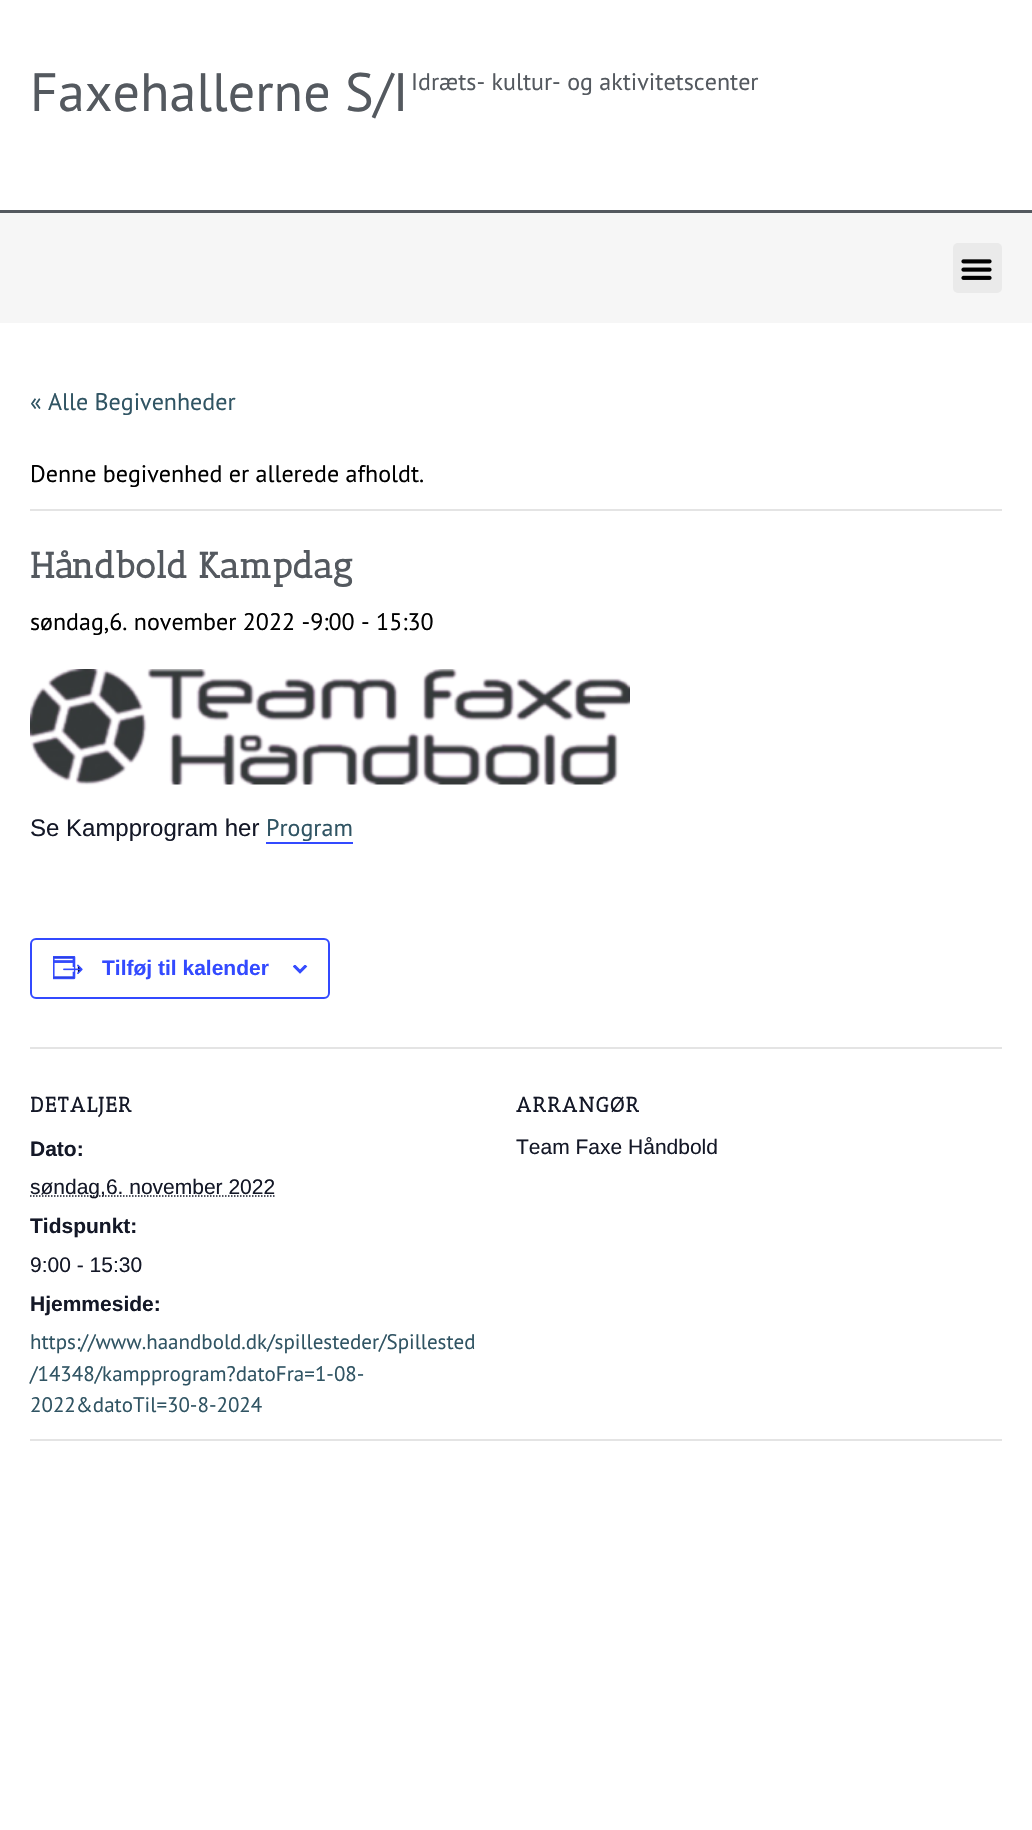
#include "include/core/SkBlurTypes.h"
#include "include/core/SkCanvas.h"
#include "include/core/SkData.h"
#include "include/core/SkFont.h"
#include "include/core/SkFontMgr.h"
#include "include/core/SkImage.h"
#include "include/core/SkMaskFilter.h"
#include "include/core/SkPaint.h"
#include "include/core/SkPathBuilder.h"
#include "include/core/SkTextBlob.h"
#include "include/effects/SkDashPathEffect.h"
#include "include/effects/SkGradientShader.h"
#include "include/utils/SkParsePath.h"

extern sk_sp<SkFontMgr> fontMgr;

static SkFont font(const char* family, int weight, float size, bool italic = false) {
    SkFontStyle style(weight, SkFontStyle::kNormal_Width,
        italic ? SkFontStyle::kItalic_Slant : SkFontStyle::kUpright_Slant);
    SkFont result(fontMgr->matchFamilyStyle(family, style), size);
    result.setSubpixel(true);
    return result;
}

static void drawLabel(SkCanvas* canvas, const char* s, float x, float y, const SkFont& font, SkColor color) {
    SkPaint ink(SkColor4f::FromColor(color));
    ink.setAntiAlias(true);
    canvas->drawString(s, x, y, font, ink);
}

static void drawTracked(SkCanvas* canvas, const char* s, float x, float y, const SkFont& font, const SkPaint& ink, float letter, float word) {
    std::vector<SkGlyphID> glyphs(font.countText(s, strlen(s), SkTextEncoding::kUTF8));
    std::vector<float> xs(glyphs.size());
    font.textToGlyphs(s, strlen(s), SkTextEncoding::kUTF8, glyphs);
    font.getXPos(glyphs, xs, x);
    float extra = 0;
    for (size_t i = 0; i < glyphs.size(); i++) {
        xs[i] += extra;
        extra += letter + word * (glyphs[i] == font.unicharToGlyph(' '));
    }
    canvas->drawTextBlob(SkTextBlob::MakeFromPosHGlyphs(glyphs, xs, y, font), 0, 0, ink);
}

static void fillRect(SkCanvas* canvas, float x, float y, float w, float h, SkColor color) {
    SkPaint ink(SkColor4f::FromColor(color));
    ink.setAntiAlias(true);
    canvas->drawRect(SkRect::MakeXYWH(x, y, w, h), ink);
}

static void fillRRect(SkCanvas* canvas, float x, float y, float w, float h, float radius, SkColor color) {
    SkPaint ink(SkColor4f::FromColor(color));
    ink.setAntiAlias(true);
    canvas->drawRoundRect(SkRect::MakeXYWH(x, y, w, h), radius, radius, ink);
}

static void drawPhoto(SkCanvas* canvas, const char* path, float x, float y, float w, float h) {
    auto image = SkImages::DeferredFromEncodedData(SkData::MakeFromFileName(path));
    canvas->drawImageRect(image, SkRect::MakeXYWH(x, y, w, h), SkSamplingOptions());
}

static SkPath parsePath(const char* data, bool evenOdd = false) {
    SkPath result = *SkParsePath::FromSVGString(data);
    if (evenOdd) result.setFillType(SkPathFillType::kEvenOdd);
    return result;
}

void draw(SkCanvas* canvas) {
    SkPaint paint;
    paint.setAntiAlias(true);
    canvas->clear(0xFFFFFFFF);
    SkFont font1 = font("PT Sans", 400, 54);
    drawLabel(canvas, "Faxehallerne S/I", 30, 111, font1, 0xFF54595F);
    SkFont font2 = font("PT Sans", 400, 24);
    drawLabel(canvas, "Idræts- kultur- og aktivitetscenter", 411, 90, font2, 0xFF54595F);
    fillRect(canvas, 0, 213, 1032, 110, 0xFFF6F6F6);
    fillRect(canvas, 0, 210, 1032, 3, 0xFF54595F);
    fillRRect(canvas, 953, 243, 49, 50, 5, 0xFFEAEAEA);
    drawPhoto(canvas, "assets/img1.png", 961, 259, 31, 21);
    drawLabel(canvas, "« Alle Begivenheder", 30, 410, font2, 0xFF305463);
    fillRect(canvas, 30, 509, 972, 2, 0xFFE4E4E4);
    drawLabel(canvas, "Denne begivenhed er allerede afholdt.", 30, 482, font2, 0xFF000000);
    SkFont font3 = font("Antic Slab", 700, 36);
    drawLabel(canvas, "Håndbold Kampdag", 30, 578, font3, 0xFF54595F);
    drawLabel(canvas, "søndag,6. november 2022 -9:00 - 15:30", 30, 630, font2, 0xFF000000);
    drawPhoto(canvas, "assets/img2.png", 30, 669, 600, 116);
    SkFont font4 = font("Liberation Sans", 400, 24);
    drawLabel(canvas, "Se Kampprogram her", 30, 836, font4, 0xFF141827);
    drawLabel(canvas, "Program", 266, 836, font2, 0xFF305463);
    fillRect(canvas, 266, 842, 87, 2, 0xFF334AFF);
    paint.setStroke(true);
    paint.setStrokeWidth(2);
    paint.setColor(0xFF334AFF);
    canvas->drawRoundRect(SkRect::MakeXYWH(31, 939, 298, 59), 5, 5, paint);
    drawPhoto(canvas, "assets/img3.png", 53, 956, 30, 24);
    SkFont font5 = font("Liberation Sans", 700, 21);
    drawLabel(canvas, "Tilføj til kalender", 102, 975, font5, 0xFF334AFF);
    drawPhoto(canvas, "assets/img4.png", 293, 965, 15, 9);
    fillRect(canvas, 30, 1047, 972, 2, 0xFFE4E4E4);
    SkFont font6 = font("Antic Slab", 700, 21);
    paint.setStroke(false);
    paint.setColor(0xFF141827);
    drawTracked(canvas, "DETALJER", 30, 1112, font6, paint, 1.5f, 0);
    drawLabel(canvas, "Dato:", 30, 1156, font5, 0xFF141827);
    paint.setStroke(true);
    paint.setStrokeWidth(1.5f);
    paint.setPathEffect(SkDashPathEffect::Make({{1.5f, 1.5f}}, 0));
    canvas->drawPath(parsePath("M30 1196H275"), paint);
    paint.setPathEffect(nullptr);
    SkFont font7 = font("Liberation Sans", 400, 21);
    drawLabel(canvas, "søndag,6. november 2022", 30, 1194, font7, 0xFF141827);
    drawLabel(canvas, "Tidspunkt:", 30, 1233, font5, 0xFF141827);
    drawLabel(canvas, "9:00 - 15:30", 30, 1272, font7, 0xFF141827);
    drawLabel(canvas, "Hjemmeside:", 30, 1311, font5, 0xFF141827);
    SkFont font8 = font("PT Sans", 400, 21);
    drawLabel(canvas, "https://www.haandbold.dk/spillesteder/Spillested", 30, 1349, font8, 0xFF305463);
    drawLabel(canvas, "/14348/kampprogram?datoFra=1-08-", 30, 1381, font8, 0xFF305463);
    drawLabel(canvas, "2022&datoTil=30-8-2024", 30, 1412, font8, 0xFF305463);
    paint.setStroke(false);
    drawTracked(canvas, "ARRANGØR", 516, 1112, font6, paint, 1.5f, 0);
    drawLabel(canvas, "Team Faxe Håndbold", 516, 1154, font7, 0xFF141827);
    fillRect(canvas, 30, 1439, 972, 2, 0xFFE4E4E4);
}
